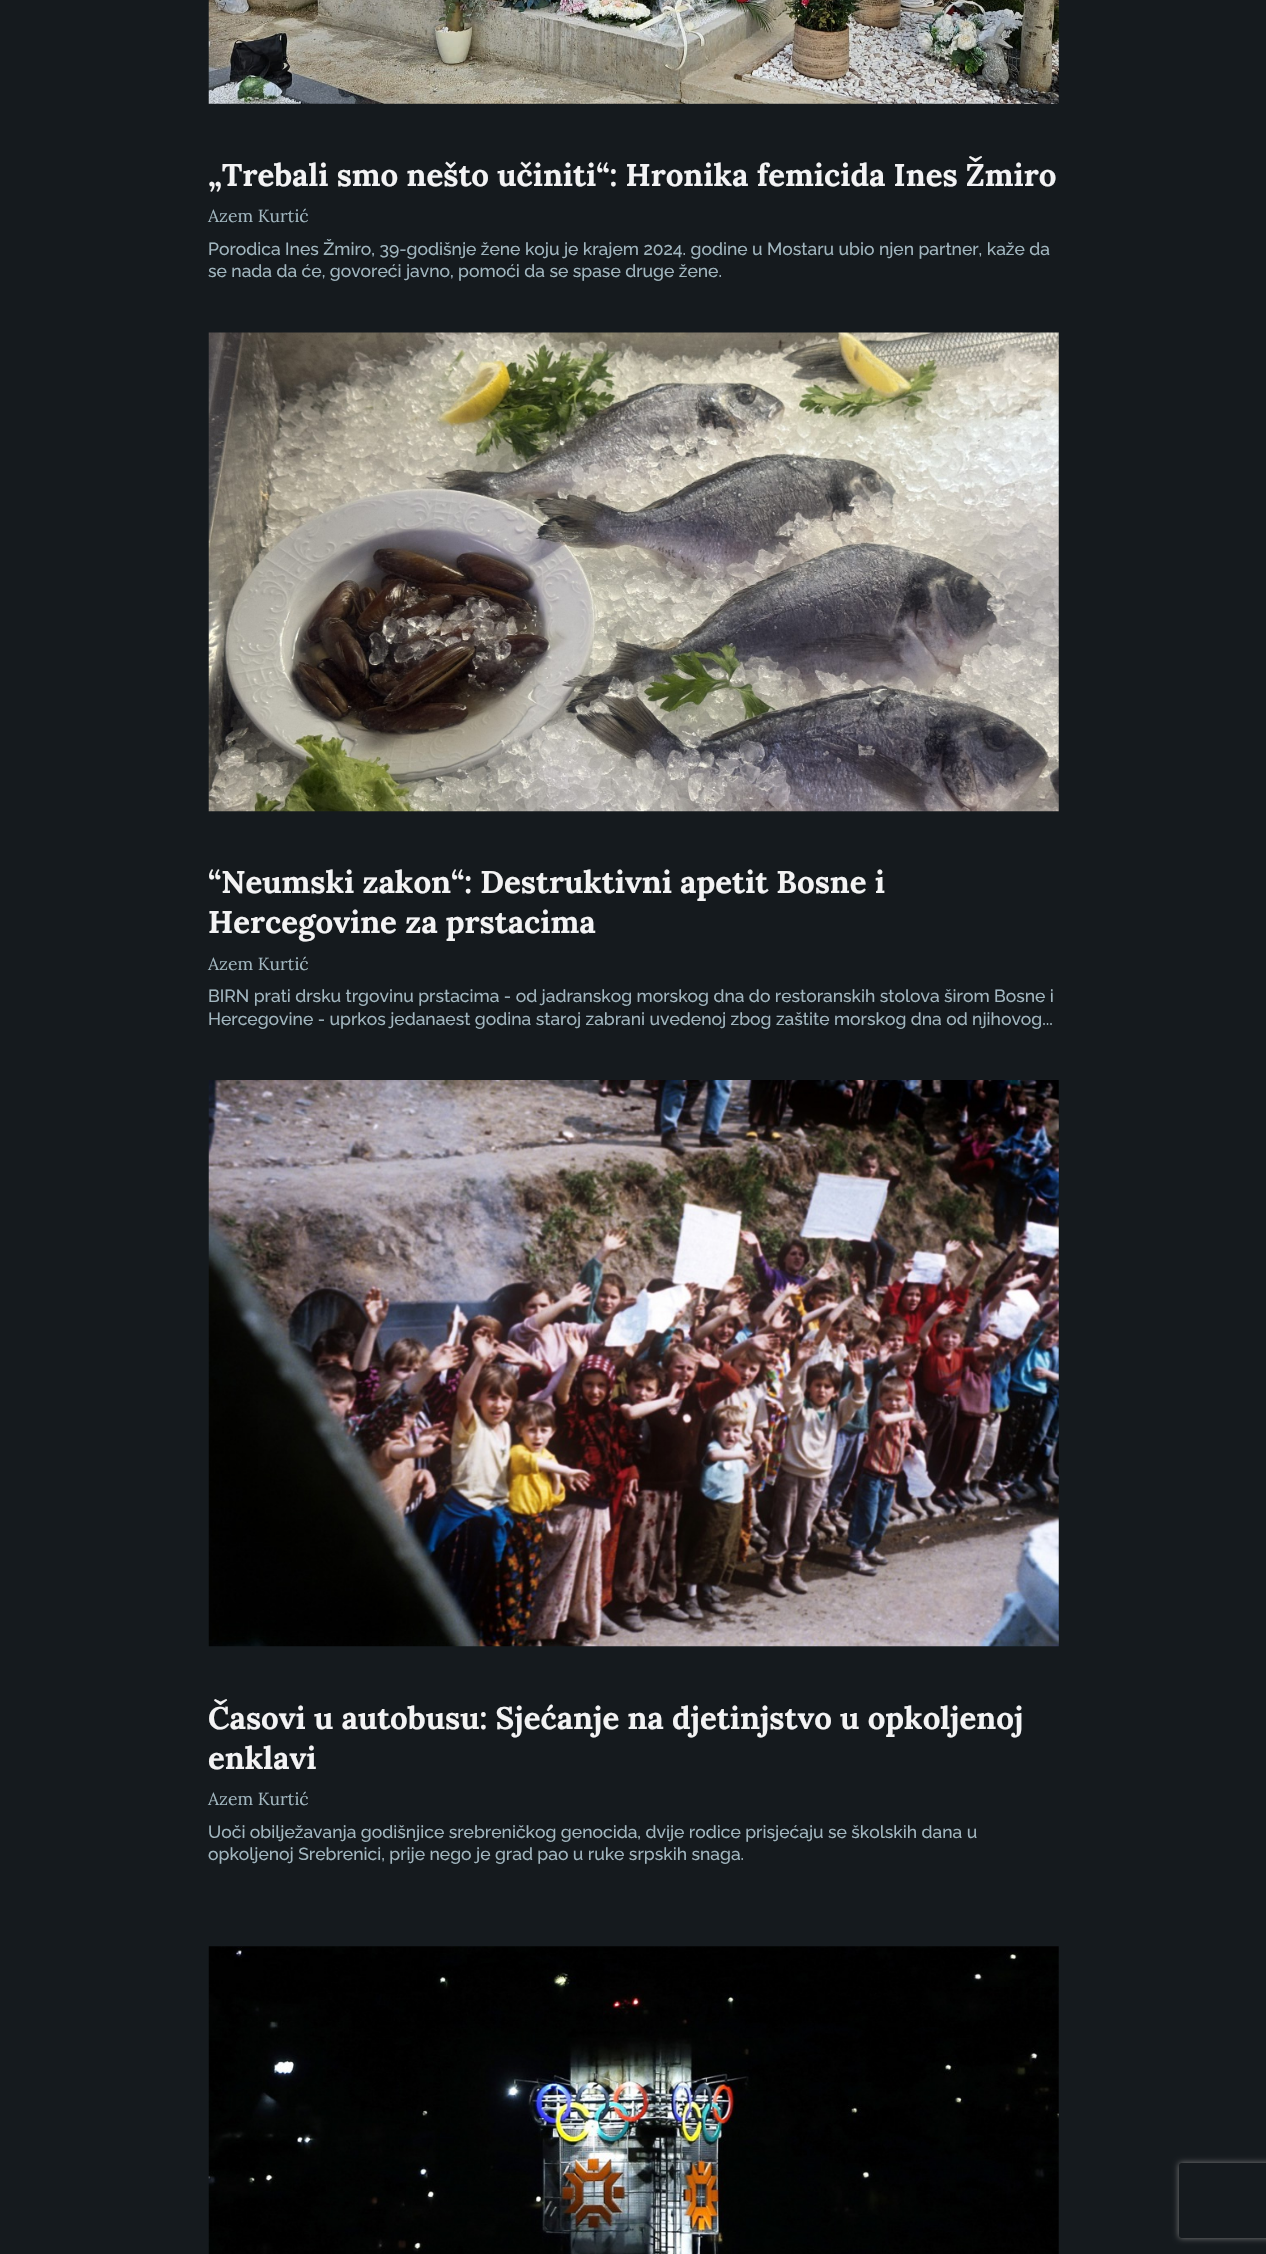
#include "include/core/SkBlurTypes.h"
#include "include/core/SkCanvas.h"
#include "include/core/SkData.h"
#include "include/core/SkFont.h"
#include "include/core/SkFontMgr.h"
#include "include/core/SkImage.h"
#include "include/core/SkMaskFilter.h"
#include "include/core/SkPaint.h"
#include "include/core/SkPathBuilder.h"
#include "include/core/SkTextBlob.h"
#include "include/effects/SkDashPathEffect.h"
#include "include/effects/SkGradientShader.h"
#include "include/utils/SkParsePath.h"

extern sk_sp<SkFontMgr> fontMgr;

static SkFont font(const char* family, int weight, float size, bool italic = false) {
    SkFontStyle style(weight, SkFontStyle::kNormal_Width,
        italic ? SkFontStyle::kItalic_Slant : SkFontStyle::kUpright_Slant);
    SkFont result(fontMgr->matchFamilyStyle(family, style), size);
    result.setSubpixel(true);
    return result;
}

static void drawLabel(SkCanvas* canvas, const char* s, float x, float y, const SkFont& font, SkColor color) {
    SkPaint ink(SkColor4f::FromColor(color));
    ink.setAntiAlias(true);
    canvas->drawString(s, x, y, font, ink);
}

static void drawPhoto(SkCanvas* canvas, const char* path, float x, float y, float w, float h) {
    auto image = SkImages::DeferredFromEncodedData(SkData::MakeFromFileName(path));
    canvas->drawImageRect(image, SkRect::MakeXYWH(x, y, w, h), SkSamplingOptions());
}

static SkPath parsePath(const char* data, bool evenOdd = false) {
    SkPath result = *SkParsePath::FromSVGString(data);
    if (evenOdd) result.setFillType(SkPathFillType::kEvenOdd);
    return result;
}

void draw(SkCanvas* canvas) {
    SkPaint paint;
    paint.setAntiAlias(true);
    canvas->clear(0xFF151A1E);
    drawPhoto(canvas, "assets/img1.png", 208, 0, 851, 104);
    SkFont font1 = font("Lora", 700, 31.25f);
    drawLabel(canvas, "„Trebali smo nešto učiniti“: Hronika femicida Ines Žmiro", 208, 186, font1, 0xFFF3F3F4);
    SkFont font2 = font("Lora", 400, 17.5f);
    drawLabel(canvas, "Azem Kurtić", 208, 222, font2, 0xFFA1B6BF);
    SkFont font3 = font("Raleway", 500, 17.5f);
    drawLabel(canvas, "Porodica Ines Žmiro, 39-godišnje žene koju je krajem 2024. godine u Mostaru ubio njen partner, kaže da", 208, 255, font3, 0xFFA1B6BF);
    drawLabel(canvas, "se nada da će, govoreći javno, pomoći da se spase druge žene.", 208, 277, font3, 0xFFA1B6BF);
    drawPhoto(canvas, "assets/img2.png", 208, 332, 851, 480);
    drawLabel(canvas, "“Neumski zakon“: Destruktivni apetit Bosne i", 208, 893, font1, 0xFFF3F3F4);
    drawLabel(canvas, "Hercegovine za prstacima", 208, 933, font1, 0xFFF3F3F4);
    drawLabel(canvas, "Azem Kurtić", 208, 970, font2, 0xFFA1B6BF);
    drawLabel(canvas, "BIRN prati drsku trgovinu prstacima - od jadranskog morskog dna do restoranskih stolova širom Bosne i", 208, 1002, font3, 0xFFA1B6BF);
    drawLabel(canvas, "Hercegovine - uprkos jedanaest godina staroj zabrani uvedenoj zbog zaštite morskog dna od njihovog...", 208, 1025, font3, 0xFFA1B6BF);
    drawPhoto(canvas, "assets/img3.png", 208, 1080, 851, 567);
    drawLabel(canvas, "Časovi u autobusu: Sjećanje na djetinjstvo u opkoljenoj", 208, 1729, font1, 0xFFF3F3F4);
    drawLabel(canvas, "enklavi", 208, 1769, font1, 0xFFF3F3F4);
    drawLabel(canvas, "Azem Kurtić", 208, 1805, font2, 0xFFA1B6BF);
    drawLabel(canvas, "Uoči obilježavanja godišnjice srebreničkog genocida, dvije rodice prisjećaju se školskih dana u", 208, 1838, font3, 0xFFA1B6BF);
    drawLabel(canvas, "opkoljenoj Srebrenici, prije nego je grad pao u ruke srpskih snaga.", 208, 1860, font3, 0xFFA1B6BF);
    drawPhoto(canvas, "assets/img4.png", 208, 1946, 851, 308);
    canvas->save();
    canvas->clipPath(parsePath("M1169 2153H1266V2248H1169ZM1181.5 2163H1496.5C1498 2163 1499 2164 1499 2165.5V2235.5C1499 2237 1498 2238 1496.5 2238H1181.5C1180 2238 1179 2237 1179 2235.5V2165.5C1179 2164 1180 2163 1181.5 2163Z", true), true);
    paint.setColor(0xFF808080);
    paint.setMaskFilter(SkMaskFilter::MakeBlur(kNormal_SkBlurStyle, 3));
    canvas->drawRoundRect(SkRect::MakeXYWH(1179, 2163, 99, 75), 2.5f, 2.5f, paint);
    paint.setMaskFilter(nullptr);
    canvas->restore();
}
